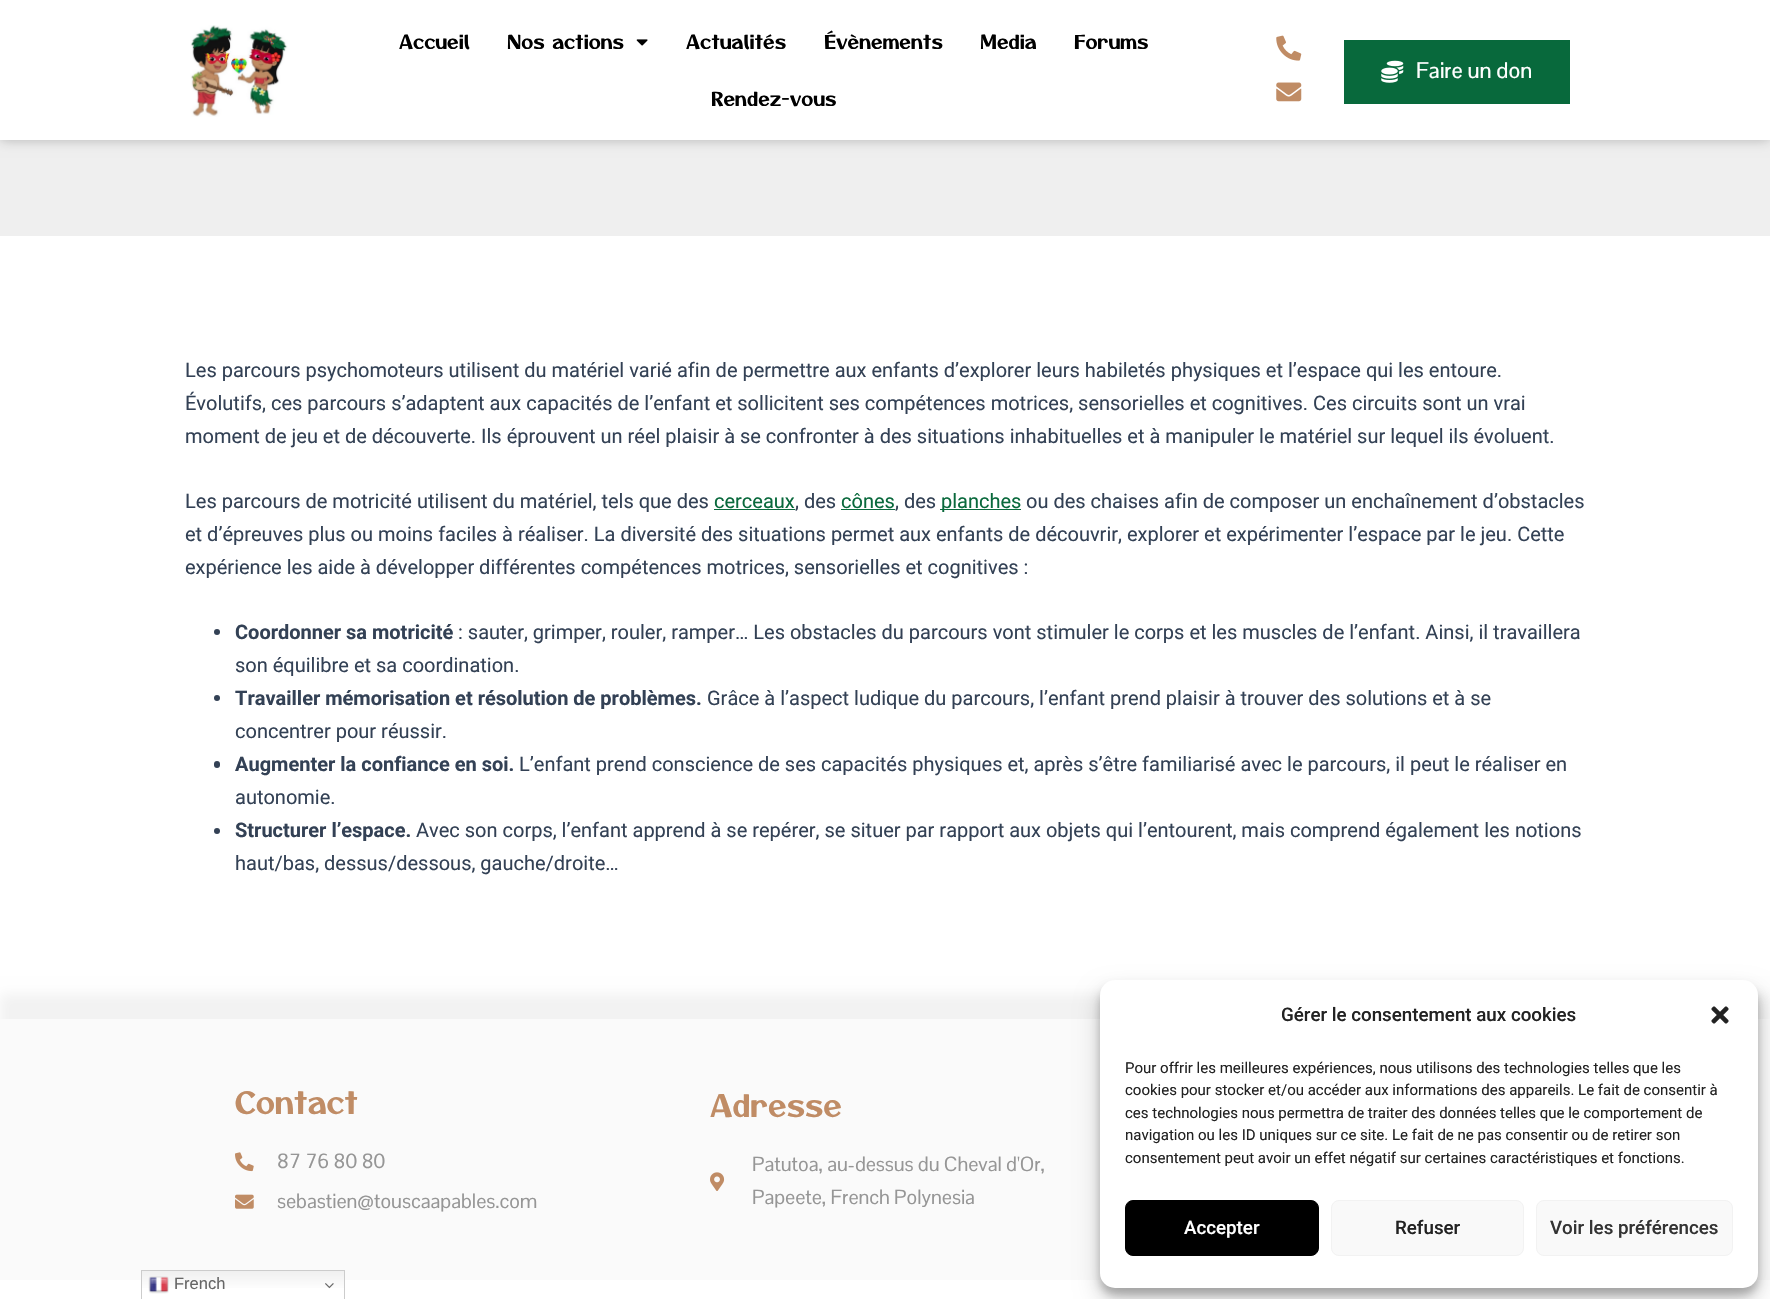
#include "include/core/SkBlurTypes.h"
#include "include/core/SkCanvas.h"
#include "include/core/SkData.h"
#include "include/core/SkFont.h"
#include "include/core/SkFontMgr.h"
#include "include/core/SkImage.h"
#include "include/core/SkMaskFilter.h"
#include "include/core/SkPaint.h"
#include "include/core/SkPathBuilder.h"
#include "include/core/SkTextBlob.h"
#include "include/effects/SkDashPathEffect.h"
#include "include/effects/SkGradientShader.h"
#include "include/utils/SkParsePath.h"

extern sk_sp<SkFontMgr> fontMgr;

static SkFont font(const char* family, int weight, float size, bool italic = false) {
    SkFontStyle style(weight, SkFontStyle::kNormal_Width,
        italic ? SkFontStyle::kItalic_Slant : SkFontStyle::kUpright_Slant);
    SkFont result(fontMgr->matchFamilyStyle(family, style), size);
    result.setSubpixel(true);
    return result;
}

static void drawLabel(SkCanvas* canvas, const char* s, float x, float y, const SkFont& font, SkColor color) {
    SkPaint ink(SkColor4f::FromColor(color));
    ink.setAntiAlias(true);
    canvas->drawString(s, x, y, font, ink);
}

static void fillRect(SkCanvas* canvas, float x, float y, float w, float h, SkColor color) {
    SkPaint ink(SkColor4f::FromColor(color));
    ink.setAntiAlias(true);
    canvas->drawRect(SkRect::MakeXYWH(x, y, w, h), ink);
}

static void fillRRect(SkCanvas* canvas, float x, float y, float w, float h, float radius, SkColor color) {
    SkPaint ink(SkColor4f::FromColor(color));
    ink.setAntiAlias(true);
    canvas->drawRoundRect(SkRect::MakeXYWH(x, y, w, h), radius, radius, ink);
}

static void drawPhoto(SkCanvas* canvas, const char* path, float x, float y, float w, float h) {
    auto image = SkImages::DeferredFromEncodedData(SkData::MakeFromFileName(path));
    canvas->drawImageRect(image, SkRect::MakeXYWH(x, y, w, h), SkSamplingOptions());
}

void draw(SkCanvas* canvas) {
    SkPaint paint;
    paint.setAntiAlias(true);
    canvas->clear(0xFFFFFFFF);
    fillRect(canvas, 0, 140, 1770, 96, 0xFFEFEFEF);
    paint.setColor(0x40000000);
    paint.setMaskFilter(SkMaskFilter::MakeBlur(kNormal_SkBlurStyle, 6));
    canvas->drawRect(SkRect::MakeXYWH(0, 0, 1770, 140), paint);
    paint.setMaskFilter(nullptr);
    fillRect(canvas, 0, 0, 1770, 140, 0xFFFFFFFF);
    drawPhoto(canvas, "assets/img1.png", 190, 25, 98, 92);
    SkFont font1 = font("Otomanopee One", 400, 18.75f);
    drawLabel(canvas, "Accueil", 399, 49, font1, 0xFF000000);
    drawLabel(canvas, "Nos actions", 507, 49, font1, 0xFF000000);
    drawPhoto(canvas, "assets/img2.png", 636, 39, 12, 7);
    drawLabel(canvas, "Actualités", 686, 49, font1, 0xFF000000);
    drawLabel(canvas, "Évènements", 824, 49, font1, 0xFF000000);
    drawLabel(canvas, "Media", 980, 49, font1, 0xFF000000);
    drawLabel(canvas, "Forums", 1074, 49, font1, 0xFF000000);
    drawLabel(canvas, "Rendez-vous", 711, 106, font1, 0xFF000000);
    drawPhoto(canvas, "assets/img3.png", 1276, 35, 26, 26);
    drawPhoto(canvas, "assets/img4.png", 1276, 82, 26, 20);
    fillRect(canvas, 1344, 40, 226, 64, 0xFF08693C);
    drawPhoto(canvas, "assets/img5.png", 1381, 60, 23, 23);
    SkFont font2 = font("Pontano Sans", 500, 22);
    drawLabel(canvas, "Faire un don", 1416, 78, font2, 0xFFFFFFFF);
    SkFont font3 = font("Roboto", 400, 20);
    drawLabel(canvas, "Les parcours psychomoteurs utilisent du matériel varié afin de permettre aux enfants d’explorer leurs habiletés physiques et l’espace qui les entoure.", 185, 377, font3, 0xFF334155);
    drawLabel(canvas, "Évolutifs, ces parcours s’adaptent aux capacités de l’enfant et sollicitent ses compétences motrices, sensorielles et cognitives. Ces circuits sont un vrai", 185, 410, font3, 0xFF334155);
    drawLabel(canvas, "moment de jeu et de découverte. Ils éprouvent un réel plaisir à se confronter à des situations inhabituelles et à manipuler le matériel sur lequel ils évoluent.", 185, 443, font3, 0xFF334155);
    drawLabel(canvas, "Les parcours de motricité utilisent du matériel, tels que des", 185, 508, font3, 0xFF334155);
    drawLabel(canvas, "cerceaux", 714, 508, font3, 0xFF09693C);
    fillRect(canvas, 714, 509, 81, 1, 0xFF09693C);
    drawLabel(canvas, ", des", 795, 508, font3, 0xFF334155);
    drawLabel(canvas, "cônes", 841, 508, font3, 0xFF09693C);
    fillRect(canvas, 841, 509, 54, 1, 0xFF09693C);
    drawLabel(canvas, ", des", 895, 508, font3, 0xFF334155);
    fillRect(canvas, 940, 509, 81, 1, 0xFF09693C);
    drawLabel(canvas, "planches", 941, 508, font3, 0xFF09693C);
    drawLabel(canvas, "ou des chaises afin de composer un enchaînement d’obstacles", 1026, 508, font3, 0xFF334155);
    drawLabel(canvas, "et d’épreuves plus ou moins faciles à réaliser. La diversité des situations permet aux enfants de découvrir, explorer et expérimenter l’espace par le jeu. Cette", 185, 541, font3, 0xFF334155);
    drawLabel(canvas, "expérience les aide à développer différentes compétences motrices, sensorielles et cognitives :", 185, 574, font3, 0xFF334155);
    paint.setColor(0xFF334155);
    canvas->drawCircle(217, 632, 3, paint);
    SkFont font4 = font("Roboto", 700, 20);
    drawLabel(canvas, "Coordonner sa motricité", 235, 639, font4, 0xFF334155);
    drawLabel(canvas, ": sauter, grimper, rouler, ramper… Les obstacles du parcours vont stimuler le corps et les muscles de l’enfant. Ainsi, il travaillera", 458, 639, font3, 0xFF334155);
    drawLabel(canvas, "son équilibre et sa coordination.", 235, 672, font3, 0xFF334155);
    canvas->drawCircle(217, 698, 3, paint);
    drawLabel(canvas, "Travailler mémorisation et résolution de problèmes.", 235, 705, font4, 0xFF334155);
    drawLabel(canvas, "Grâce à l’aspect ludique du parcours, l’enfant prend plaisir à trouver des solutions et à se", 707, 705, font3, 0xFF334155);
    drawLabel(canvas, "concentrer pour réussir.", 235, 738, font3, 0xFF334155);
    fillRRect(canvas, 214, 761, 6, 7, 3, 0xFF334155);
    drawLabel(canvas, "Augmenter la confiance en soi.", 235, 771, font4, 0xFF334155);
    drawLabel(canvas, "L’enfant prend conscience de ses capacités physiques et, après s’être familiarisé avec le parcours, il peut le réaliser en", 519, 771, font3, 0xFF334155);
    drawLabel(canvas, "autonomie.", 235, 804, font3, 0xFF334155);
    canvas->drawCircle(217, 831, 3, paint);
    drawLabel(canvas, "Structurer l’espace.", 235, 837, font4, 0xFF334155);
    drawLabel(canvas, "Avec son corps, l’enfant apprend à se repérer, se situer par rapport aux objets qui l’entourent, mais comprend également les notions", 416, 837, font3, 0xFF334155);
    drawLabel(canvas, "haut/bas, dessus/dessous, gauche/droite…", 235, 870, font3, 0xFF334155);
    paint.setColor(0x0D000000);
    paint.setMaskFilter(SkMaskFilter::MakeBlur(kNormal_SkBlurStyle, 6));
    canvas->drawRect(SkRect::MakeXYWH(0, 994, 1770, 261), paint);
    paint.setMaskFilter(nullptr);
    fillRect(canvas, 0, 1019, 1770, 261, 0xFFFAFAFA);
    SkFont font5 = font("Otomanopee One", 400, 30);
    drawLabel(canvas, "Contact", 235, 1114, font5, 0xFFC08C65);
    drawPhoto(canvas, "assets/img6.png", 235, 1152, 19, 20);
    SkFont font6 = font("Pontano Sans", 400, 20);
    drawLabel(canvas, "87 76 80 80", 277, 1168, font6, 0xFF969696);
    drawPhoto(canvas, "assets/img7.png", 235, 1194, 19, 15);
    drawLabel(canvas, "sebastien@touscaapables.com", 277, 1208, font6, 0xFF969696);
    drawLabel(canvas, "Adresse", 710, 1117, font5, 0xFFC08C65);
    drawPhoto(canvas, "assets/img8.png", 710, 1172, 15, 19);
    drawLabel(canvas, "Patutoa, au-dessus du Cheval d'Or,", 752, 1171, font6, 0xFF969696);
    drawLabel(canvas, "Papeete, French Polynesia", 752, 1204, font6, 0xFF969696);
    paint.setColor(0x3B000000);
    paint.setMaskFilter(SkMaskFilter::MakeBlur(kNormal_SkBlurStyle, 4));
    canvas->drawRoundRect(SkRect::MakeXYWH(1100, 988, 658, 307), 15, 15, paint);
    paint.setMaskFilter(nullptr);
    paint.setColor(0x30000000);
    paint.setMaskFilter(SkMaskFilter::MakeBlur(kNormal_SkBlurStyle, 12.5f));
    canvas->drawRoundRect(SkRect::MakeXYWH(1100, 993, 658, 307), 15, 15, paint);
    paint.setMaskFilter(nullptr);
    fillRRect(canvas, 1100, 980, 658, 308, 15, 0xFFFFFFFF);
    SkFont font7 = font("Roboto", 500, 18.75f);
    drawLabel(canvas, "Gérer le consentement aux cookies", 1281, 1021, font7, 0xFF222222);
    drawPhoto(canvas, "assets/img9.png", 1711, 1006, 18, 18);
    SkFont font8 = font("Roboto", 400, 15);
    drawLabel(canvas, "Pour offrir les meilleures expériences, nous utilisons des technologies telles que les", 1125, 1073, font8, 0xFF222222);
    drawLabel(canvas, "cookies pour stocker et/ou accéder aux informations des appareils. Le fait de consentir à", 1125, 1095, font8, 0xFF222222);
    drawLabel(canvas, "ces technologies nous permettra de traiter des données telles que le comportement de", 1125, 1118, font8, 0xFF222222);
    drawLabel(canvas, "navigation ou les ID uniques sur ce site. Le fait de ne pas consentir ou de retirer son", 1125, 1140, font8, 0xFF222222);
    drawLabel(canvas, "consentement peut avoir un effet négatif sur certaines caractéristiques et fonctions.", 1125, 1163, font8, 0xFF222222);
    paint.setColor(0xFF000000);
    canvas->drawRoundRect(SkRect::MakeXYWH(1125.5f, 1200.5f, 193, 55), 7.5f, 7.5f, paint);
    paint.setStroke(true);
    paint.setStrokeWidth(1);
    canvas->drawRoundRect(SkRect::MakeXYWH(1125.5f, 1200.5f, 193, 55), 7.5f, 7.5f, paint);
    drawLabel(canvas, "Accepter", 1184, 1234, font7, 0xFFFFFFFF);
    paint.setStroke(false);
    paint.setColor(0xFFF9F9F9);
    canvas->drawRoundRect(SkRect::MakeXYWH(1331.5f, 1200.5f, 192, 55), 7.5f, 7.5f, paint);
    paint.setStroke(true);
    paint.setColor(0xFFF2F2F2);
    canvas->drawRoundRect(SkRect::MakeXYWH(1331.5f, 1200.5f, 192, 55), 7.5f, 7.5f, paint);
    drawLabel(canvas, "Refuser", 1395, 1234, font7, 0xFF222222);
    paint.setStroke(false);
    paint.setColor(0xFFF9F9F9);
    canvas->drawRoundRect(SkRect::MakeXYWH(1536.5f, 1200.5f, 196, 55), 7.5f, 7.5f, paint);
    paint.setStroke(true);
    paint.setColor(0xFFF2F2F2);
    canvas->drawRoundRect(SkRect::MakeXYWH(1536.5f, 1200.5f, 196, 55), 7.5f, 7.5f, paint);
    drawLabel(canvas, "Voir les préférences", 1550, 1234, font7, 0xFF333333);
    paint.setStroke(false);
    {
        const SkColor colors[] = {0xFFEFEFEF, 0xFFFFFFFF};
        const float stops[] = {0, 0.7f};
        const SkPoint ends[] = {{243, 1270}, {243, 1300}};
        paint.setShader(SkGradientShader::MakeLinear(ends, colors, stops, 2, SkTileMode::kClamp));
        paint.setAlpha(255);
    }
    canvas->drawRect(SkRect::MakeXYWH(142, 1271, 202, 17), paint);
    paint.setStroke(true);
    paint.setShader(nullptr);
    paint.setColor(0xFFCCCCCC);
    canvas->drawRect(SkRect::MakeXYWH(141.5f, 1270.5f, 203, 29), paint);
    drawPhoto(canvas, "assets/img10.png", 148, 1276, 21, 18);
    SkFont font9 = font("Liberation Sans", 400, 16.5f);
    drawLabel(canvas, "French", 174, 1289, font9, 0xFF666666);
    drawPhoto(canvas, "assets/img11.png", 325, 1283, 9, 6);
}
